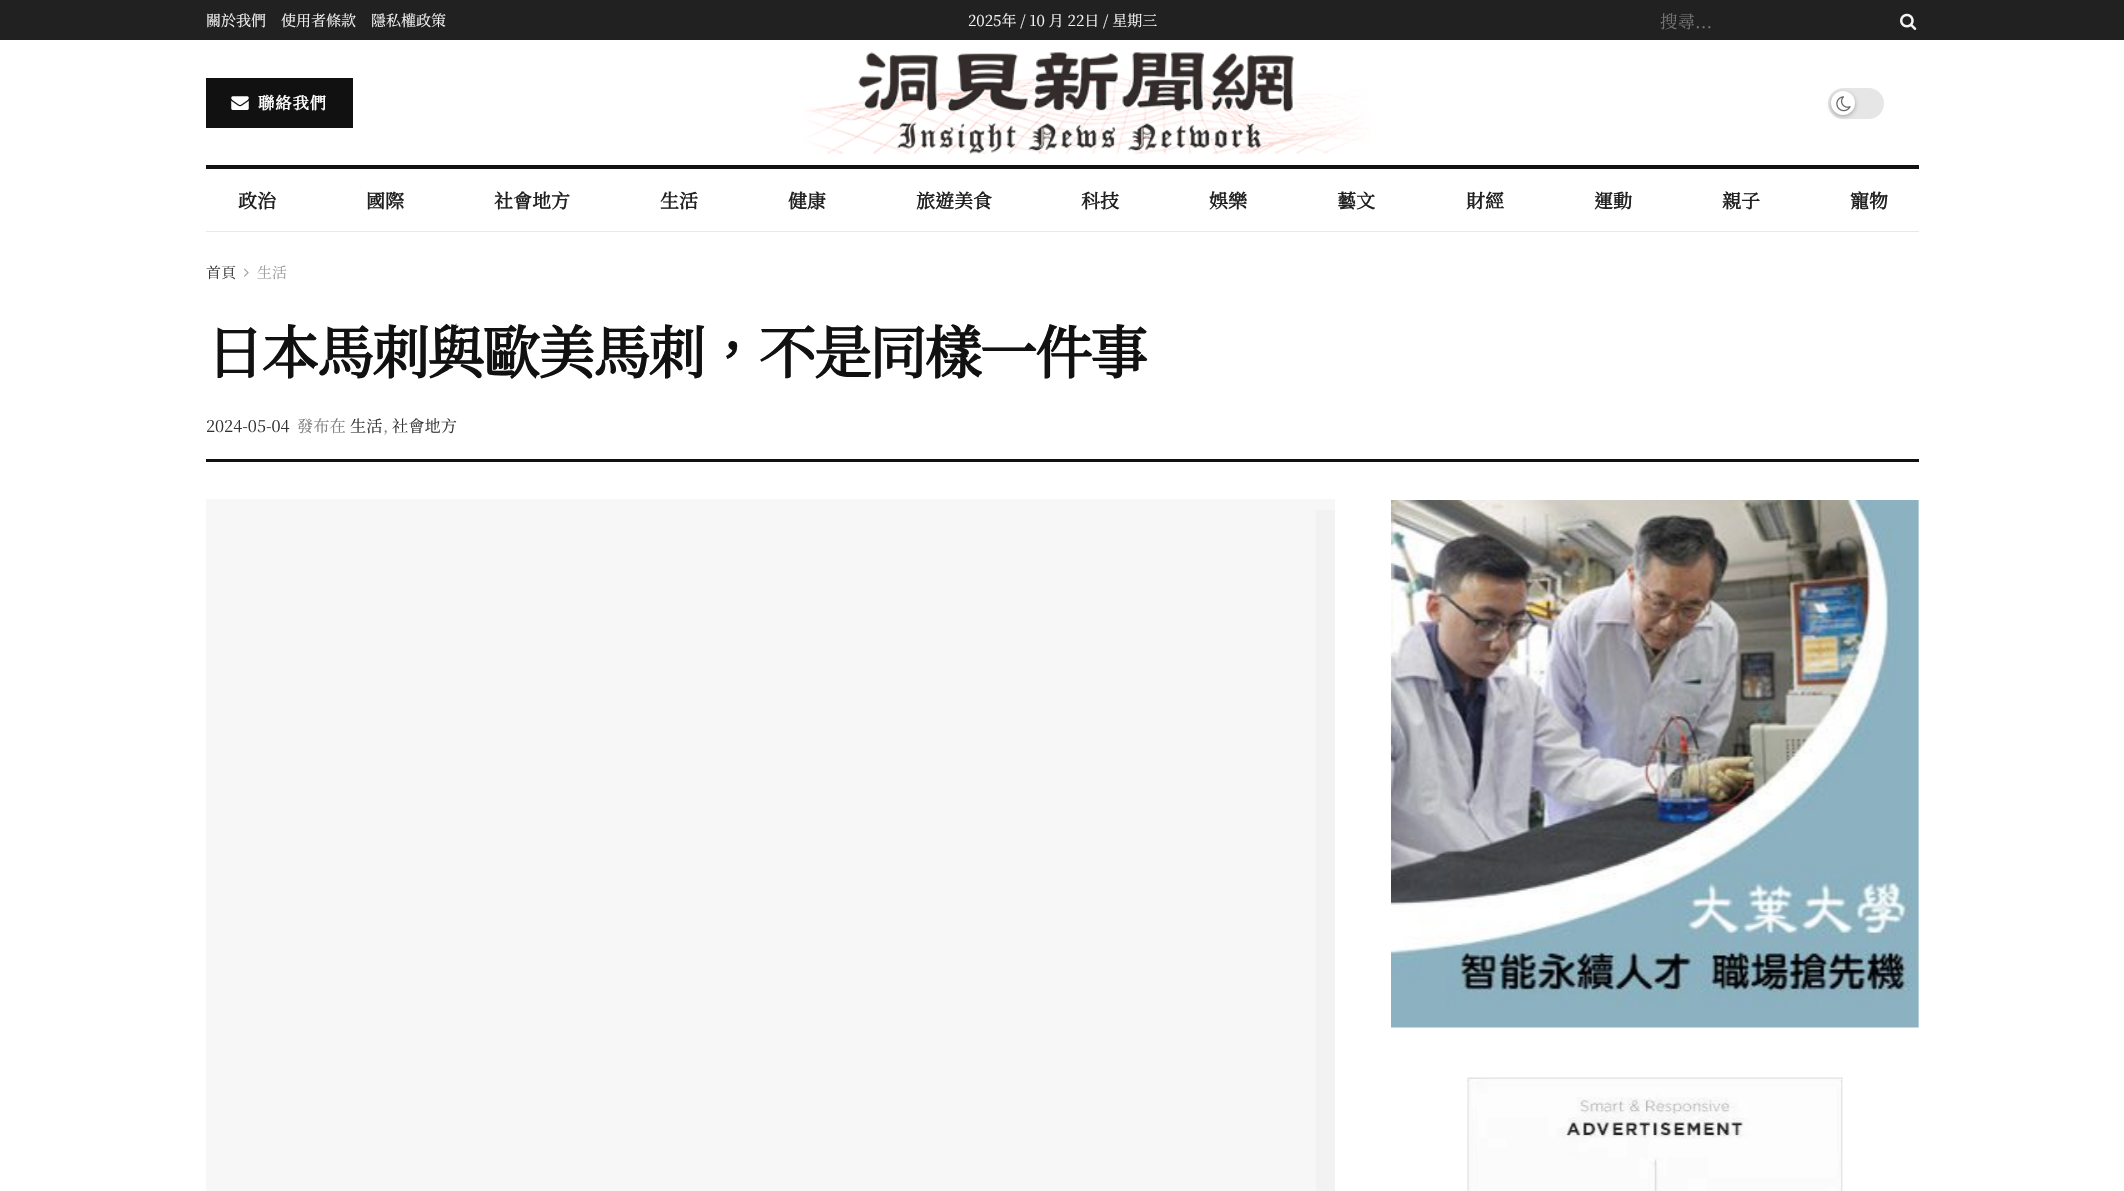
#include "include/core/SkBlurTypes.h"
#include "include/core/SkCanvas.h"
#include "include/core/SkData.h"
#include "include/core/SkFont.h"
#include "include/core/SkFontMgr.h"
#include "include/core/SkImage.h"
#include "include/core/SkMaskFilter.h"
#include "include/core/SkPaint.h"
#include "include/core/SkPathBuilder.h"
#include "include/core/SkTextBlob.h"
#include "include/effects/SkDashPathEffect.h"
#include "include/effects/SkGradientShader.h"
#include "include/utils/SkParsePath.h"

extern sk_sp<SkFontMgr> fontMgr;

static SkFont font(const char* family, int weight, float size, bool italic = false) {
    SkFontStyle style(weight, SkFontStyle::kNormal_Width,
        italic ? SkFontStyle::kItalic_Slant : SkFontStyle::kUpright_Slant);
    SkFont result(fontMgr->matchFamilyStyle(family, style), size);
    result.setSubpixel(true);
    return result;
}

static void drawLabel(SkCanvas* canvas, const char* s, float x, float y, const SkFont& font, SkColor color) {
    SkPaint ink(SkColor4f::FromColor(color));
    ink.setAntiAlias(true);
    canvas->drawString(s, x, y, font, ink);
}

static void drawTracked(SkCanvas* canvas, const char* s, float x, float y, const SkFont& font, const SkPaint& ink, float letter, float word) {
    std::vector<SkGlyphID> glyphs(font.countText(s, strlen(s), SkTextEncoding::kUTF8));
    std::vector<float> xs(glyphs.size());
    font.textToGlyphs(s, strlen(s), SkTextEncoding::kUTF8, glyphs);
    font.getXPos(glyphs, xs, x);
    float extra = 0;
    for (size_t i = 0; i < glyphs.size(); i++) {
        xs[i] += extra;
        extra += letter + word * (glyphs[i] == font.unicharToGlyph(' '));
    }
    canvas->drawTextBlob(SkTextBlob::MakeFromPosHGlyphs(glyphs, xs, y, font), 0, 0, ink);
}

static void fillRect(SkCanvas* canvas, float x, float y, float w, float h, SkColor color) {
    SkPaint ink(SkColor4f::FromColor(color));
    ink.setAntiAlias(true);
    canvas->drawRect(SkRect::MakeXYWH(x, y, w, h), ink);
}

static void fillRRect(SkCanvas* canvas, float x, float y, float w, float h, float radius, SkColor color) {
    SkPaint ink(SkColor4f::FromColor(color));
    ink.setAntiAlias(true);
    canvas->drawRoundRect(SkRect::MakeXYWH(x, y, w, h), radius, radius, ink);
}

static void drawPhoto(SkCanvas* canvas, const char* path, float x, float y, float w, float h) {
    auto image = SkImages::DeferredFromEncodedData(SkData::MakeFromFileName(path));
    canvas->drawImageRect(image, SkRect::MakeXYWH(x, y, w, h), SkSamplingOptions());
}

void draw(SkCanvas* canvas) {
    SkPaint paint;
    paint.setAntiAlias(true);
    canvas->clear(0xFFFFFFFF);
    fillRect(canvas, 0, 0, 2124, 40, 0xFF212121);
    SkFont font1 = font("Noto Serif TC", 200, 15);
    drawLabel(canvas, "關於我們", 206, 26, font1, 0xFFF5F5F5);
    drawLabel(canvas, "使用者條款", 281, 26, font1, 0xFFF5F5F5);
    drawLabel(canvas, "隱私權政策", 371, 26, font1, 0xFFF5F5F5);
    drawLabel(canvas, "2025年 / 10 月 22日 / 星期三", 968, 26, font1, 0xFFF5F5F5);
    SkFont font2 = font("Noto Serif TC", 200, 17.5f);
    drawLabel(canvas, "搜尋...", 1660, 28, font2, 0xFF757575);
    drawPhoto(canvas, "assets/img1.png", 1900, 13, 17, 17);
    fillRect(canvas, 206, 78, 147, 50, 0xFF111111);
    drawPhoto(canvas, "assets/img2.png", 231, 96, 18, 14);
    SkFont font3 = font("Noto Serif TC", 700, 16.25f);
    paint.setColor(0xFFFFFFFF);
    drawTracked(canvas, "聯絡我們", 258, 109, font3, paint, 1, 0);
    drawPhoto(canvas, "assets/img3.png", 804, 52, 567, 102);
    fillRRect(canvas, 1828, 88, 56, 31, 15.5f, 0xFFE6E6E6);
    paint.setColor(0x4D000000);
    paint.setMaskFilter(SkMaskFilter::MakeBlur(kNormal_SkBlurStyle, 2));
    canvas->drawRoundRect(SkRect::MakeXYWH(1831, 93, 24, 23), 11.5f, 11.5f, paint);
    paint.setMaskFilter(nullptr);
    paint.setColor(0xFFFFFFFF);
    canvas->drawCircle(1843, 103, 12, paint);
    drawPhoto(canvas, "assets/img4.png", 1836, 96, 15, 16);
    fillRect(canvas, 206, 165, 1713, 4, 0xFF111111);
    fillRect(canvas, 206, 231, 1713, 1, 0xFFE8E8E8);
    SkFont font4 = font("Noto Serif TC", 700, 19);
    drawLabel(canvas, "政治", 238, 208, font4, 0xFF212121);
    drawLabel(canvas, "國際", 366, 208, font4, 0xFF212121);
    drawLabel(canvas, "社會地方", 494, 208, font4, 0xFF212121);
    drawLabel(canvas, "生活", 660, 208, font4, 0xFF212121);
    drawLabel(canvas, "健康", 788, 208, font4, 0xFF212121);
    drawLabel(canvas, "旅遊美食", 916, 208, font4, 0xFF212121);
    drawLabel(canvas, "科技", 1081, 208, font4, 0xFF212121);
    drawLabel(canvas, "娛樂", 1209, 208, font4, 0xFF212121);
    drawLabel(canvas, "藝文", 1337, 208, font4, 0xFF212121);
    drawLabel(canvas, "財經", 1466, 208, font4, 0xFF212121);
    drawLabel(canvas, "運動", 1594, 208, font4, 0xFF212121);
    drawLabel(canvas, "親子", 1722, 208, font4, 0xFF212121);
    drawLabel(canvas, "寵物", 1850, 208, font4, 0xFF212121);
    drawLabel(canvas, "首頁", 206, 278, font1, 0xFF333333);
    drawPhoto(canvas, "assets/img5.png", 244, 268, 5, 9);
    drawLabel(canvas, "生活", 257, 278, font1, 0xFFA0A0A0);
    fillRect(canvas, 206, 459, 1713, 3, 0xFF111111);
    SkFont font5 = font("Noto Serif TC", 700, 57.5f);
    paint.setColor(0xFF111111);
    drawTracked(canvas, "日本馬刺與歐美馬刺，不是同樣一件事", 206, 374, font5, paint, -2.25f, 0);
    SkFont font6 = font("Noto Serif TC", 200, 16.25f);
    drawLabel(canvas, "2024-05-04", 206, 432, font6, 0xFF333333);
    drawLabel(canvas, "發布在", 297, 432, font6, 0xFF808080);
    drawLabel(canvas, "生活", 350, 432, font6, 0xFF333333);
    drawLabel(canvas, ",", 383, 432, font6, 0xFF808080);
    drawLabel(canvas, "社會地方", 392, 432, font6, 0xFF333333);
    fillRect(canvas, 206, 499, 1129, 692, 0xFFF7F7F7);
    fillRect(canvas, 1316, 510, 19, 681, 0xFFF2F2F2);
    drawPhoto(canvas, "assets/img6.png", 1391, 500, 528, 528);
    drawPhoto(canvas, "assets/img7.png", 1467, 1077, 376, 114);
}
